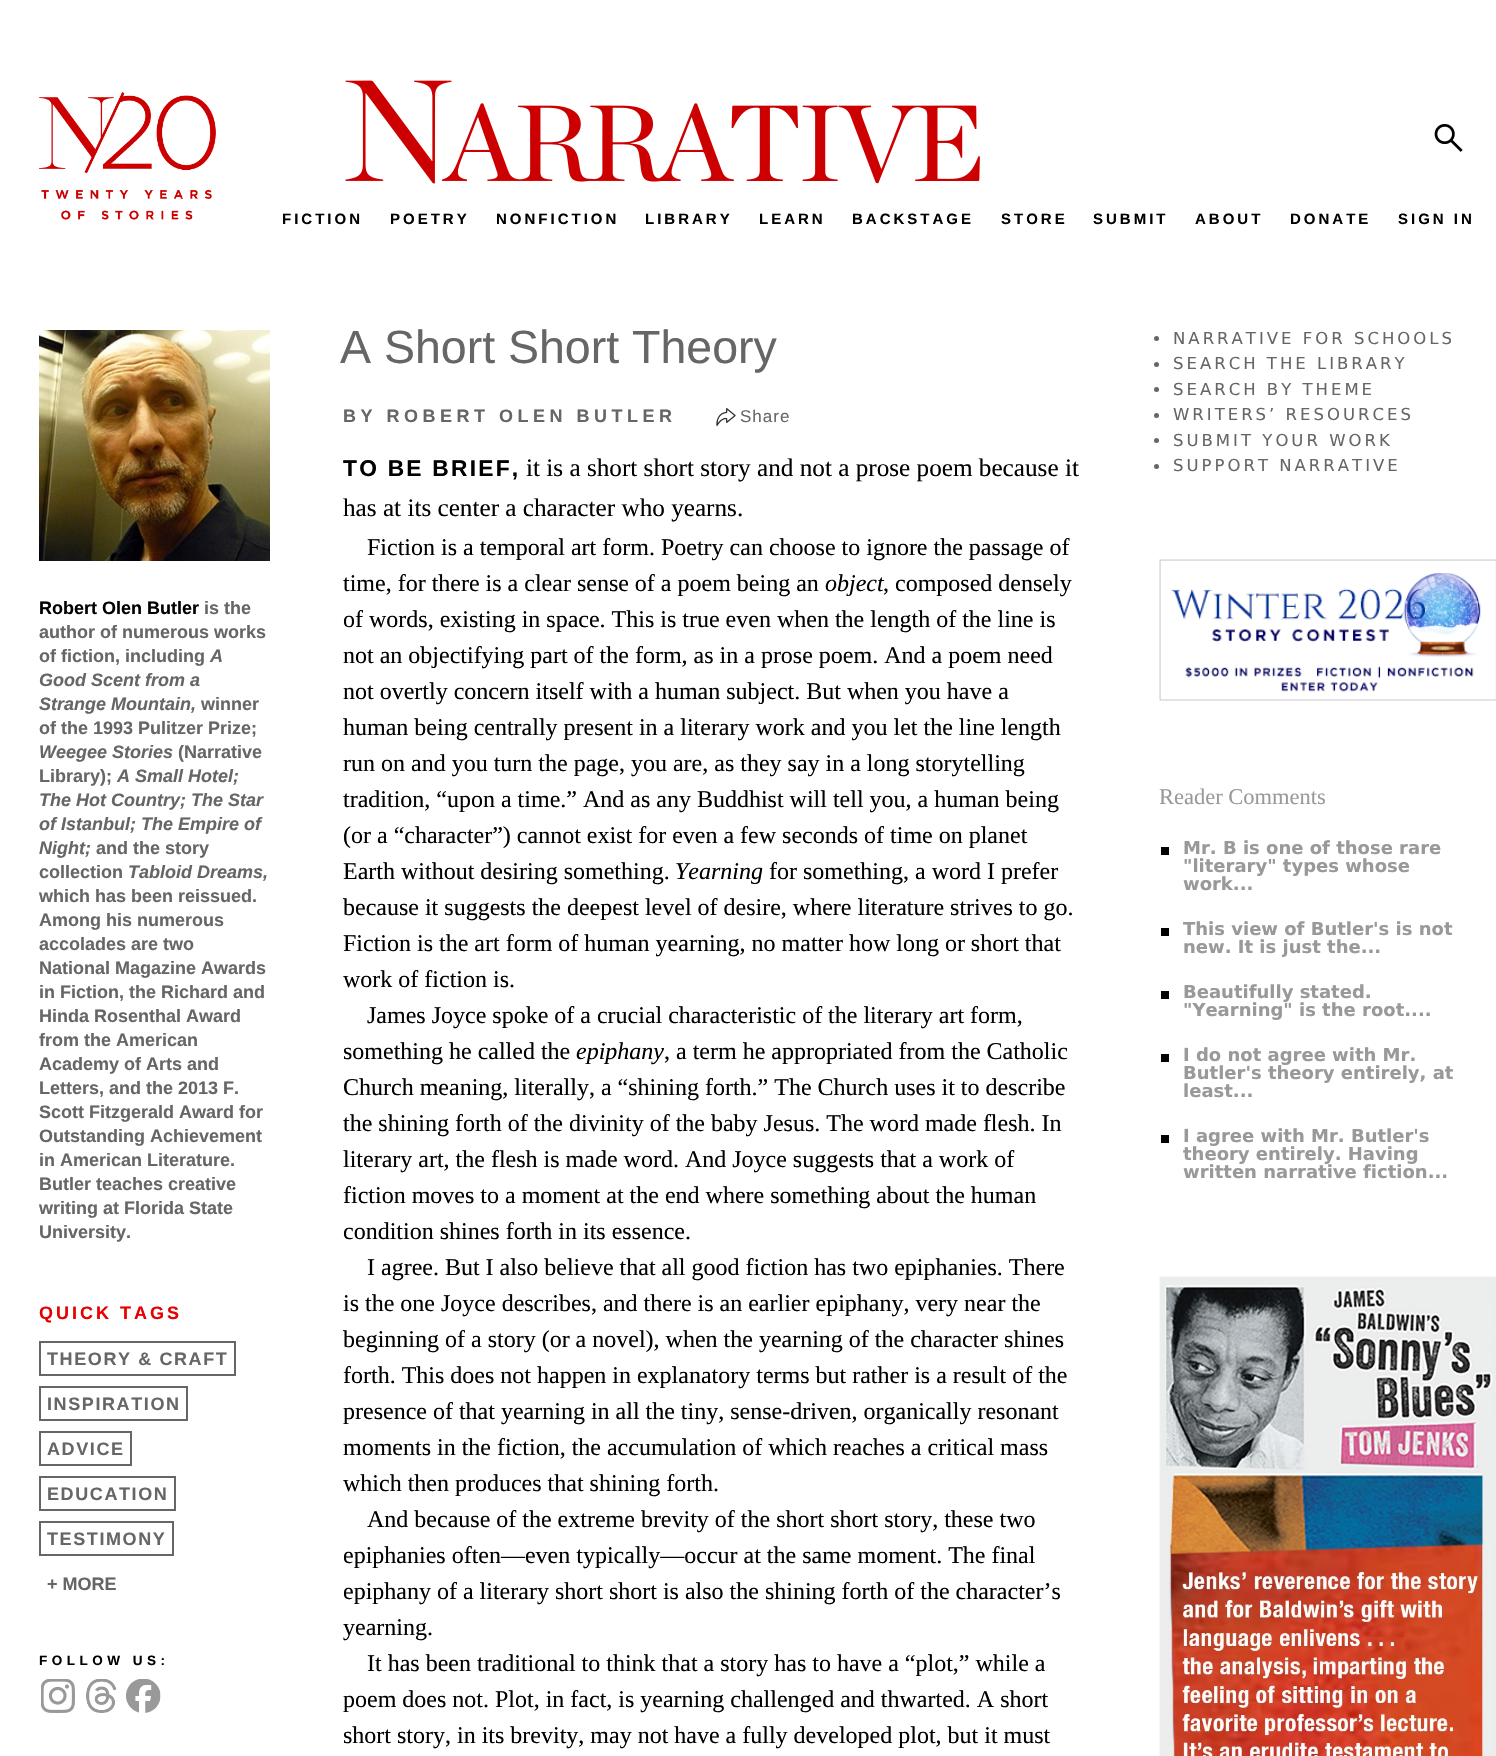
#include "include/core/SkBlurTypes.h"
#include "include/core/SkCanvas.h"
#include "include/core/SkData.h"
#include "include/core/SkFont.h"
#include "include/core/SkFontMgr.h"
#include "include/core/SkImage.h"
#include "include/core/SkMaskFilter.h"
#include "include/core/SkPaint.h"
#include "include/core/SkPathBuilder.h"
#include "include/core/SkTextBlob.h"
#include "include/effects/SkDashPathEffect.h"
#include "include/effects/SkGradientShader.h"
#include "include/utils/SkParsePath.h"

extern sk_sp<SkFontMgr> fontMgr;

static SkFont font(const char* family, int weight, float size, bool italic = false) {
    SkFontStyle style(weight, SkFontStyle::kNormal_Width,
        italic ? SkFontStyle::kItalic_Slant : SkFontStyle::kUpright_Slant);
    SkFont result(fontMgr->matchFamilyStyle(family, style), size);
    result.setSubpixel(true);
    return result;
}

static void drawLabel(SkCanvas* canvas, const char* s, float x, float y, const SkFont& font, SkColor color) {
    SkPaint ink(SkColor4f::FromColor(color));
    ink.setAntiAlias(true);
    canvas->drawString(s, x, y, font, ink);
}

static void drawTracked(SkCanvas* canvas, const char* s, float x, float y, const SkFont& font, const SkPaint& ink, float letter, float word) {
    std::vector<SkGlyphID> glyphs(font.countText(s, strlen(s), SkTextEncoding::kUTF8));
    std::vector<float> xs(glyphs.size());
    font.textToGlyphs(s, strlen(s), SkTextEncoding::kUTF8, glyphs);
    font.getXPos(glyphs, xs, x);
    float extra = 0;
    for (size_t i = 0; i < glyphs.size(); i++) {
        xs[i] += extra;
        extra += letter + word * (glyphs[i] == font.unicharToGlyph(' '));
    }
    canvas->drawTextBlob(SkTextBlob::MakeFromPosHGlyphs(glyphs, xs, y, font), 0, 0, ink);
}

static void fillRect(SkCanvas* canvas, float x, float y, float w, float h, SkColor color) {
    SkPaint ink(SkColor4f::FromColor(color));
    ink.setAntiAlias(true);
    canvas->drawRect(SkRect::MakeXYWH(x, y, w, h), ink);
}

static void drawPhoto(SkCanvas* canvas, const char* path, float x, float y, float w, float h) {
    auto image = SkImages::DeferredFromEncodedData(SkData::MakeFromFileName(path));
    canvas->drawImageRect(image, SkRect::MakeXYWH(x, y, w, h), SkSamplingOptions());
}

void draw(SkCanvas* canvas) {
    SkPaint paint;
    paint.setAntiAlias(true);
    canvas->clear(0xFFFFFFFF);
    drawPhoto(canvas, "assets/img1.png", 39, 92, 177, 128);
    drawPhoto(canvas, "assets/img2.png", 345, 80, 635, 104);
    drawPhoto(canvas, "assets/img3.png", 1434, 124, 29, 28);
    SkFont font1 = font("Liberation Sans", 700, 15);
    paint.setColor(0xFF000000);
    drawTracked(canvas, "FICTION", 282, 224, font1, paint, 3, 0);
    drawTracked(canvas, "POETRY", 390, 224, font1, paint, 3, 0);
    drawTracked(canvas, "NONFICTION", 496, 224, font1, paint, 3, 0);
    drawTracked(canvas, "LIBRARY", 645, 224, font1, paint, 3, 0);
    drawTracked(canvas, "LEARN", 759, 224, font1, paint, 3, 0);
    drawTracked(canvas, "BACKSTAGE", 852, 224, font1, paint, 3, 0);
    drawTracked(canvas, "STORE", 1001, 224, font1, paint, 3, 0);
    drawTracked(canvas, "SUBMIT", 1093, 224, font1, paint, 3, 0);
    drawTracked(canvas, "ABOUT", 1195, 224, font1, paint, 3, 0);
    drawTracked(canvas, "DONATE", 1290, 224, font1, paint, 3, 0);
    drawTracked(canvas, "SIGN IN", 1398, 224, font1, paint, 3, 0);
    drawPhoto(canvas, "assets/img4.png", 39, 330, 231, 231);
    SkFont font2 = font("Liberation Sans", 700, 18);
    drawLabel(canvas, "Robert Olen Butler", 39, 614, font2, 0xFF000000);
    drawLabel(canvas, "is the", 204, 614, font2, 0xFF666666);
    drawLabel(canvas, "author of numerous works", 39, 638, font2, 0xFF666666);
    drawLabel(canvas, "of fiction, including", 39, 662, font2, 0xFF666666);
    SkFont font3 = font("Liberation Sans", 700, 18, true);
    drawLabel(canvas, "A", 210, 662, font3, 0xFF666666);
    drawLabel(canvas, "Good Scent from a", 39, 686, font3, 0xFF666666);
    drawLabel(canvas, "Strange Mountain,", 39, 710, font3, 0xFF666666);
    drawLabel(canvas, "winner", 201, 710, font2, 0xFF666666);
    drawLabel(canvas, "of the 1993 Pulitzer Prize;", 39, 734, font2, 0xFF666666);
    drawLabel(canvas, "Weegee Stories", 39, 758, font3, 0xFF666666);
    drawLabel(canvas, "(Narrative", 178, 758, font2, 0xFF666666);
    drawLabel(canvas, "Library);", 39, 782, font2, 0xFF666666);
    drawLabel(canvas, "A Small Hotel;", 117, 782, font3, 0xFF666666);
    drawLabel(canvas, "The Hot Country; The Star", 39, 806, font3, 0xFF666666);
    drawLabel(canvas, "of Istanbul; The Empire of", 39, 830, font3, 0xFF666666);
    drawLabel(canvas, "Night;", 39, 854, font3, 0xFF666666);
    drawLabel(canvas, "and the story", 96, 854, font2, 0xFF666666);
    drawLabel(canvas, "collection", 39, 878, font2, 0xFF666666);
    drawLabel(canvas, "Tabloid Dreams,", 128, 878, font3, 0xFF666666);
    drawLabel(canvas, "which has been reissued.", 39, 902, font2, 0xFF666666);
    drawLabel(canvas, "Among his numerous", 39, 926, font2, 0xFF666666);
    drawLabel(canvas, "accolades are two", 39, 950, font2, 0xFF666666);
    drawLabel(canvas, "National Magazine Awards", 39, 974, font2, 0xFF666666);
    drawLabel(canvas, "in Fiction, the Richard and", 39, 998, font2, 0xFF666666);
    drawLabel(canvas, "Hinda Rosenthal Award", 39, 1022, font2, 0xFF666666);
    drawLabel(canvas, "from the American", 39, 1046, font2, 0xFF666666);
    drawLabel(canvas, "Academy of Arts and", 39, 1070, font2, 0xFF666666);
    drawLabel(canvas, "Letters, and the 2013 F.", 39, 1094, font2, 0xFF666666);
    drawLabel(canvas, "Scott Fitzgerald Award for", 39, 1118, font2, 0xFF666666);
    drawLabel(canvas, "Outstanding Achievement", 39, 1142, font2, 0xFF666666);
    drawLabel(canvas, "in American Literature.", 39, 1166, font2, 0xFF666666);
    drawLabel(canvas, "Butler teaches creative", 39, 1190, font2, 0xFF666666);
    drawLabel(canvas, "writing at Florida State", 39, 1214, font2, 0xFF666666);
    drawLabel(canvas, "University.", 39, 1238, font2, 0xFF666666);
    paint.setColor(0xFFE60000);
    drawTracked(canvas, "QUICK TAGS", 39, 1319, font2, paint, 3, 0);
    paint.setStroke(true);
    paint.setStrokeWidth(2);
    paint.setColor(0xFF666666);
    canvas->drawRect(SkRect::MakeXYWH(40, 1342, 195, 33), paint);
    paint.setStroke(false);
    drawTracked(canvas, "THEORY & CRAFT", 47, 1365, font2, paint, 1.6f, 0);
    paint.setStroke(true);
    canvas->drawRect(SkRect::MakeXYWH(40, 1387, 147, 33), paint);
    paint.setStroke(false);
    drawTracked(canvas, "INSPIRATION", 47, 1410, font2, paint, 1.6f, 0);
    paint.setStroke(true);
    canvas->drawRect(SkRect::MakeXYWH(40, 1432, 91, 33), paint);
    paint.setStroke(false);
    drawTracked(canvas, "ADVICE", 47, 1455, font2, paint, 1.6f, 0);
    paint.setStroke(true);
    canvas->drawRect(SkRect::MakeXYWH(40, 1477, 135, 33), paint);
    paint.setStroke(false);
    drawTracked(canvas, "EDUCATION", 47, 1500, font2, paint, 1.6f, 0);
    paint.setStroke(true);
    canvas->drawRect(SkRect::MakeXYWH(40, 1522, 133, 33), paint);
    paint.setStroke(false);
    drawTracked(canvas, "TESTIMONY", 47, 1545, font2, paint, 1.6f, 0);
    drawLabel(canvas, "+ MORE", 47, 1590, font2, 0xFF666666);
    SkFont font4 = font("Liberation Sans", 700, 13.5f);
    paint.setColor(0xFF000000);
    drawTracked(canvas, "FOLLOW US:", 39, 1665, font4, paint, 4.5f, 0);
    drawPhoto(canvas, "assets/img5.png", 41, 1679, 34, 34);
    drawPhoto(canvas, "assets/img6.png", 86, 1679, 31, 34);
    drawPhoto(canvas, "assets/img7.png", 126, 1679, 35, 34);
    SkFont font5 = font("Liberation Sans", 400, 46.5f);
    drawLabel(canvas, "A Short Short Theory", 340, 363, font5, 0xFF666666);
    paint.setColor(0xFF666666);
    drawTracked(canvas, "BY ROBERT OLEN BUTLER", 343, 422, font2, paint, 4.5f, 0);
    drawPhoto(canvas, "assets/img8.png", 716, 408, 20, 18);
    SkFont font6 = font("Liberation Sans", 400, 17);
    drawTracked(canvas, "Share", 740, 422, font6, paint, 1, 0);
    SkFont font7 = font("Liberation Sans", 700, 22.75f);
    paint.setColor(0xFF000000);
    drawTracked(canvas, "TO BE BRIEF,", 343, 476, font7, paint, 2.25f, 0);
    SkFont font8 = font("Liberation Serif", 400, 25.2f);
    drawLabel(canvas, "it is a short short story and not a prose poem because it", 526, 476, font8, 0xFF000000);
    drawLabel(canvas, "has at its center a character who yearns.", 343, 516, font8, 0xFF000000);
    SkFont font9 = font("Liberation Serif", 400, 24);
    drawLabel(canvas, "Fiction is a temporal art form. Poetry can choose to ignore the passage of", 367, 555, font9, 0xFF000000);
    drawLabel(canvas, "time, for there is a clear sense of a poem being an", 343, 591, font9, 0xFF000000);
    SkFont font10 = font("Liberation Serif", 400, 24, true);
    drawLabel(canvas, "object", 825, 591, font10, 0xFF000000);
    drawLabel(canvas, ", composed densely", 883, 591, font9, 0xFF000000);
    drawLabel(canvas, "of words, existing in space. This is true even when the length of the line is", 343, 627, font9, 0xFF000000);
    drawLabel(canvas, "not an objectifying part of the form, as in a prose poem. And a poem need", 343, 663, font9, 0xFF000000);
    drawLabel(canvas, "not overtly concern itself with a human subject. But when you have a", 343, 699, font9, 0xFF000000);
    drawLabel(canvas, "human being centrally present in a literary work and you let the line length", 343, 735, font9, 0xFF000000);
    drawLabel(canvas, "run on and you turn the page, you are, as they say in a long storytelling", 343, 771, font9, 0xFF000000);
    drawLabel(canvas, "tradition, “upon a time.” And as any Buddhist will tell you, a human being", 343, 807, font9, 0xFF000000);
    drawLabel(canvas, "(or a “character”) cannot exist for even a few seconds of time on planet", 343, 843, font9, 0xFF000000);
    drawLabel(canvas, "Earth without desiring something.", 343, 879, font9, 0xFF000000);
    drawLabel(canvas, "Yearning", 675, 879, font10, 0xFF000000);
    drawLabel(canvas, "for something, a word I prefer", 769, 879, font9, 0xFF000000);
    drawLabel(canvas, "because it suggests the deepest level of desire, where literature strives to go.", 343, 915, font9, 0xFF000000);
    drawLabel(canvas, "Fiction is the art form of human yearning, no matter how long or short that", 343, 951, font9, 0xFF000000);
    drawLabel(canvas, "work of fiction is.", 343, 987, font9, 0xFF000000);
    drawLabel(canvas, "James Joyce spoke of a crucial characteristic of the literary art form,", 367, 1023, font9, 0xFF000000);
    drawLabel(canvas, "something he called the", 343, 1059, font9, 0xFF000000);
    drawLabel(canvas, "epiphany", 576, 1059, font10, 0xFF000000);
    drawLabel(canvas, ", a term he appropriated from the Catholic", 664, 1059, font9, 0xFF000000);
    drawLabel(canvas, "Church meaning, literally, a “shining forth.” The Church uses it to describe", 343, 1095, font9, 0xFF000000);
    drawLabel(canvas, "the shining forth of the divinity of the baby Jesus. The word made flesh. In", 343, 1131, font9, 0xFF000000);
    drawLabel(canvas, "literary art, the flesh is made word. And Joyce suggests that a work of", 343, 1167, font9, 0xFF000000);
    drawLabel(canvas, "fiction moves to a moment at the end where something about the human", 343, 1203, font9, 0xFF000000);
    drawLabel(canvas, "condition shines forth in its essence.", 343, 1239, font9, 0xFF000000);
    drawLabel(canvas, "I agree. But I also believe that all good fiction has two epiphanies. There", 367, 1275, font9, 0xFF000000);
    drawLabel(canvas, "is the one Joyce describes, and there is an earlier epiphany, very near the", 343, 1311, font9, 0xFF000000);
    drawLabel(canvas, "beginning of a story (or a novel), when the yearning of the character shines", 343, 1347, font9, 0xFF000000);
    drawLabel(canvas, "forth. This does not happen in explanatory terms but rather is a result of the", 343, 1383, font9, 0xFF000000);
    drawLabel(canvas, "presence of that yearning in all the tiny, sense-driven, organically resonant", 343, 1419, font9, 0xFF000000);
    drawLabel(canvas, "moments in the fiction, the accumulation of which reaches a critical mass", 343, 1455, font9, 0xFF000000);
    drawLabel(canvas, "which then produces that shining forth.", 343, 1491, font9, 0xFF000000);
    drawLabel(canvas, "And because of the extreme brevity of the short short story, these two", 367, 1527, font9, 0xFF000000);
    drawLabel(canvas, "epiphanies often—even typically—occur at the same moment. The final", 343, 1563, font9, 0xFF000000);
    drawLabel(canvas, "epiphany of a literary short short is also the shining forth of the character’s", 343, 1599, font9, 0xFF000000);
    drawLabel(canvas, "yearning.", 343, 1635, font9, 0xFF000000);
    drawLabel(canvas, "It has been traditional to think that a story has to have a “plot,” while a", 367, 1671, font9, 0xFF000000);
    drawLabel(canvas, "poem does not. Plot, in fact, is yearning challenged and thwarted. A short", 343, 1707, font9, 0xFF000000);
    drawLabel(canvas, "short story, in its brevity, may not have a fully developed plot, but it must", 343, 1743, font9, 0xFF000000);
    paint.setColor(0xFF666666);
    canvas->drawCircle(1156.5f, 338.5f, 2.5f, paint);
    SkFont font11 = font("DejaVu Sans", 400, 16.5f);
    drawTracked(canvas, "NARRATIVE FOR SCHOOLS", 1173, 344, font11, paint, 3, 0);
    canvas->drawCircle(1156.5f, 364.5f, 2.5f, paint);
    drawTracked(canvas, "SEARCH THE LIBRARY", 1173, 369, font11, paint, 3, 0);
    canvas->drawCircle(1156.5f, 389.5f, 2.5f, paint);
    drawTracked(canvas, "SEARCH BY THEME", 1173, 395, font11, paint, 3, 0);
    canvas->drawCircle(1156.5f, 415.5f, 2.5f, paint);
    drawTracked(canvas, "WRITERS’ RESOURCES", 1173, 420, font11, paint, 3, 0);
    canvas->drawCircle(1156.5f, 440.5f, 2.5f, paint);
    drawTracked(canvas, "SUBMIT YOUR WORK", 1173, 446, font11, paint, 3, 0);
    canvas->drawCircle(1156.5f, 466.5f, 2.5f, paint);
    drawTracked(canvas, "SUPPORT NARRATIVE", 1173, 471, font11, paint, 3, 0);
    drawPhoto(canvas, "assets/img9.png", 1159, 559, 337, 142);
    SkFont font12 = font("Liberation Serif", 400, 22.5f);
    drawLabel(canvas, "Reader Comments", 1159, 804, font12, 0xFF999999);
    fillRect(canvas, 1161, 847, 8, 8, 0xFF000000);
    SkFont font13 = font("DejaVu Sans", 700, 18);
    drawLabel(canvas, "Mr. B is one of those rare", 1183, 854, font13, 0xFF999999);
    drawLabel(canvas, "\"literary\" types whose", 1183, 872, font13, 0xFF999999);
    drawLabel(canvas, "work...", 1183, 890, font13, 0xFF999999);
    fillRect(canvas, 1161, 928, 8, 8, 0xFF000000);
    drawLabel(canvas, "This view of Butler's is not", 1183, 935, font13, 0xFF999999);
    drawLabel(canvas, "new. It is just the...", 1183, 953, font13, 0xFF999999);
    fillRect(canvas, 1161, 991, 8, 8, 0xFF000000);
    drawLabel(canvas, "Beautifully stated.", 1183, 998, font13, 0xFF999999);
    drawLabel(canvas, "\"Yearning\" is the root....", 1183, 1016, font13, 0xFF999999);
    fillRect(canvas, 1161, 1054, 8, 8, 0xFF000000);
    drawLabel(canvas, "I do not agree with Mr.", 1183, 1061, font13, 0xFF999999);
    drawLabel(canvas, "Butler's theory entirely, at", 1183, 1079, font13, 0xFF999999);
    drawLabel(canvas, "least...", 1183, 1097, font13, 0xFF999999);
    fillRect(canvas, 1161, 1135, 8, 8, 0xFF000000);
    drawLabel(canvas, "I agree with Mr. Butler's", 1183, 1142, font13, 0xFF999999);
    drawLabel(canvas, "theory entirely. Having", 1183, 1160, font13, 0xFF999999);
    drawLabel(canvas, "written narrative fiction...", 1183, 1178, font13, 0xFF999999);
    drawPhoto(canvas, "assets/img10.png", 1159, 1276, 337, 480);
}
